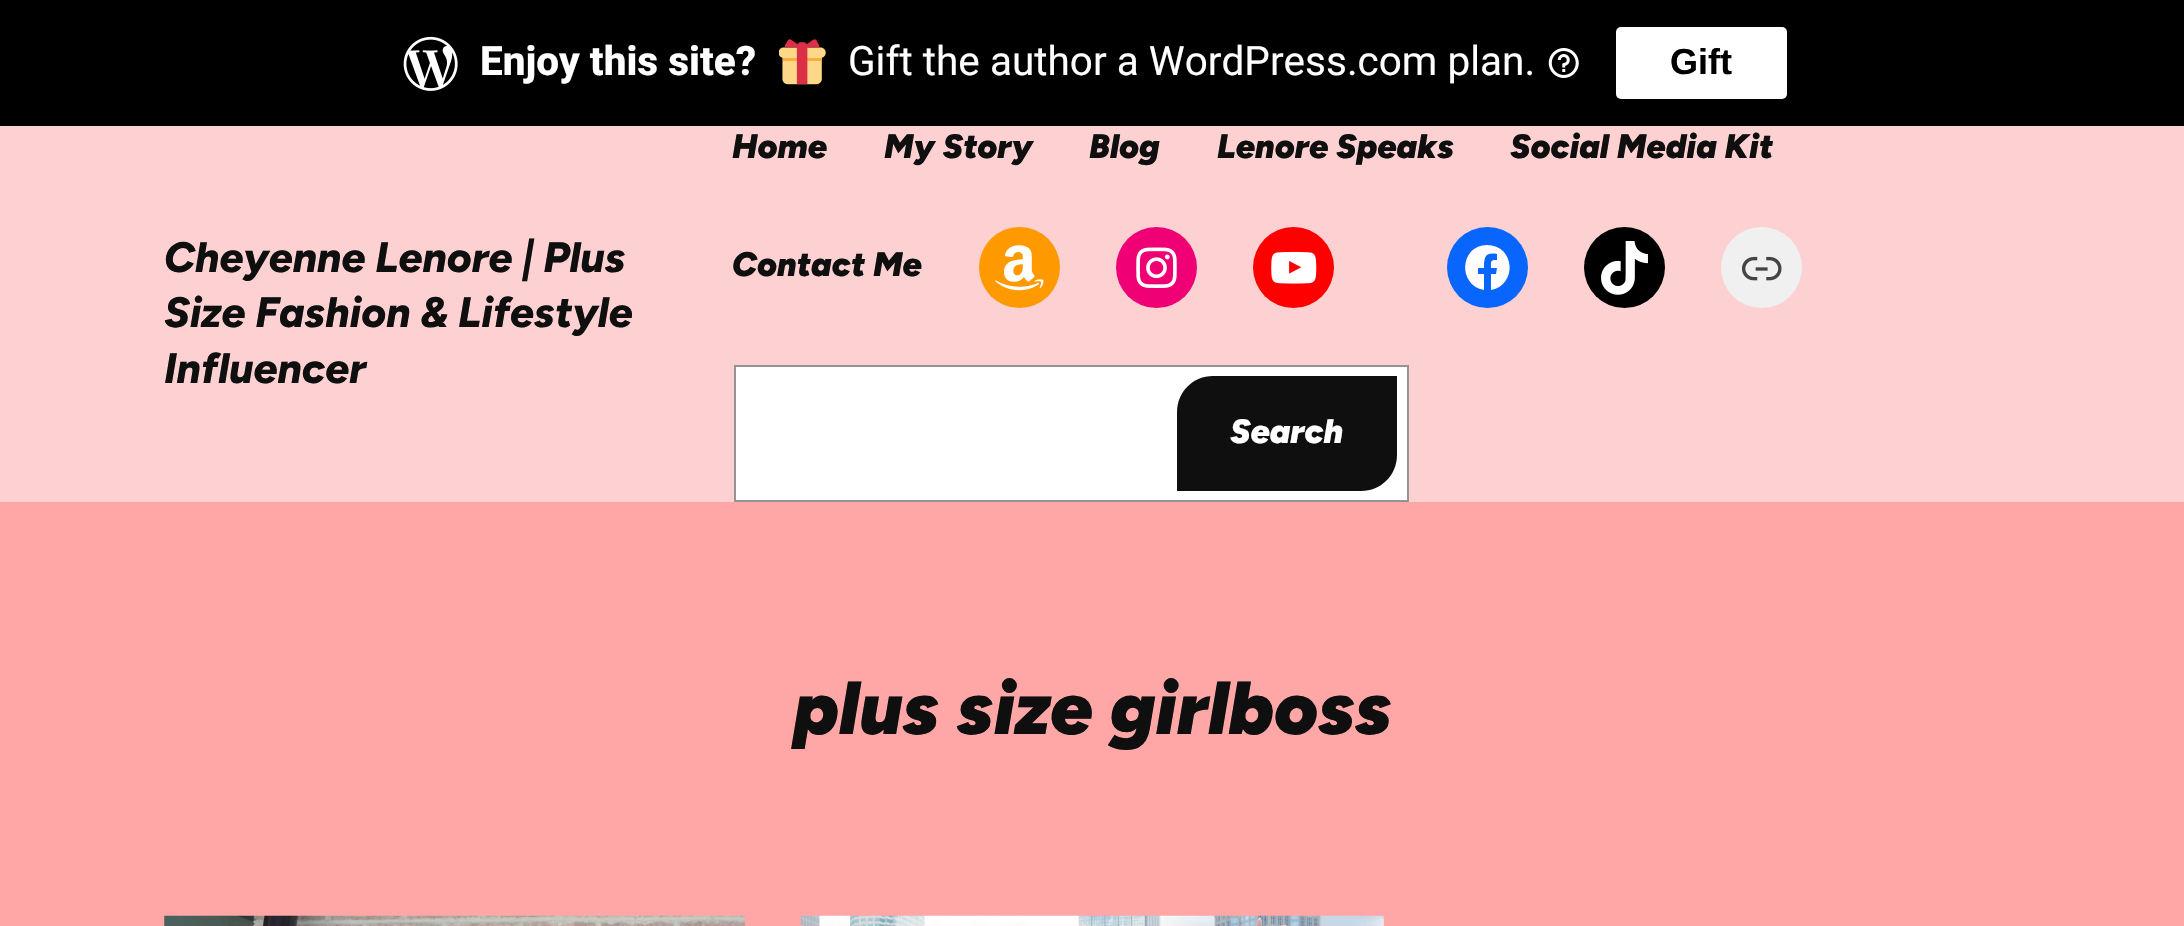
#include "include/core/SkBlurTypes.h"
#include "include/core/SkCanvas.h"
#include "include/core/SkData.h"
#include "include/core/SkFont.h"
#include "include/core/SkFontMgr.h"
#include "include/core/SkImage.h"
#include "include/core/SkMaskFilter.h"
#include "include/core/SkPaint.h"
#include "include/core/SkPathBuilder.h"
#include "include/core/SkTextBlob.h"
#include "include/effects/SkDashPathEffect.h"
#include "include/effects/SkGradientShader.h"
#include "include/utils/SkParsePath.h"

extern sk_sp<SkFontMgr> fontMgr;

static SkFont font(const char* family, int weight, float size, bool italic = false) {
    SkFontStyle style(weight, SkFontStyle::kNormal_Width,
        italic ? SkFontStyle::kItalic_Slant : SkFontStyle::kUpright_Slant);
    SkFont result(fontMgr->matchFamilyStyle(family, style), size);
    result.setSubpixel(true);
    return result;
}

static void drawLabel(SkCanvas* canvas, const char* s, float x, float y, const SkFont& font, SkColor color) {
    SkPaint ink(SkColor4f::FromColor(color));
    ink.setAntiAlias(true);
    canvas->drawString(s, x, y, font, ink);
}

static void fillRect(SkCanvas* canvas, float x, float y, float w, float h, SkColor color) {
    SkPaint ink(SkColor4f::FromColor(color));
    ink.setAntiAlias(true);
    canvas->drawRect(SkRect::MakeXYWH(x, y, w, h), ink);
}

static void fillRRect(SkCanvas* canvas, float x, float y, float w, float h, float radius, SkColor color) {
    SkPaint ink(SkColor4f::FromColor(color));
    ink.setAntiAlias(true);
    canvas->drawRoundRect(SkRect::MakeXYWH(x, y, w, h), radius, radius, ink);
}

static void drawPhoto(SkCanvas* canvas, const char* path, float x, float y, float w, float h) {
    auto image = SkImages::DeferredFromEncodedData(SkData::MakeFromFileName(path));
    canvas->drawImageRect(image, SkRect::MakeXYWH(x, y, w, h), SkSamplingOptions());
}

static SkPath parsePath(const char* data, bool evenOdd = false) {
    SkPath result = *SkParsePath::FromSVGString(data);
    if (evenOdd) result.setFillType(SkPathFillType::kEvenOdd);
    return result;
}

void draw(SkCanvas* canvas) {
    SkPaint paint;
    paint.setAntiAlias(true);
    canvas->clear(0xFFFFA6A6);
    fillRect(canvas, 0, 0, 2184, 126, 0xFF000000);
    drawPhoto(canvas, "assets/img1.png", 403, 36, 55, 55);
    SkFont font1 = font("Roboto", 800, 40.5f);
    drawLabel(canvas, "Enjoy this site?", 480, 75, font1, 0xFFFFFFFF);
    drawPhoto(canvas, "assets/img2.png", 779, 39, 47, 46);
    SkFont font2 = font("Roboto", 400, 40.5f);
    drawLabel(canvas, "Gift the author a WordPress.com plan.", 848, 75, font2, 0xFFFFFFFF);
    drawPhoto(canvas, "assets/img3.png", 1548, 48, 31, 30);
    fillRRect(canvas, 1616, 27, 171, 72, 5, 0xFFFFFFFF);
    SkFont font3 = font("Liberation Sans", 700, 36);
    drawLabel(canvas, "Gift", 1670, 74, font3, 0xFF000000);
    fillRect(canvas, 0, 126, 2184, 376, 0xFFFDD1D1);
    SkFont font4 = font("Figtree", 800, 42.5f, true);
    drawLabel(canvas, "Cheyenne Lenore | Plus", 164, 272, font4, 0xFF0F0F0F);
    drawLabel(canvas, "Size Fashion & Lifestyle", 164, 327, font4, 0xFF0F0F0F);
    drawLabel(canvas, "Influencer", 164, 383, font4, 0xFF0F0F0F);
    SkFont font5 = font("Figtree", 900, 34, true);
    drawLabel(canvas, "Home", 732, 158, font5, 0xFF0F0F0F);
    drawLabel(canvas, "My Story", 884, 158, font5, 0xFF0F0F0F);
    drawLabel(canvas, "Blog", 1089, 158, font5, 0xFF0F0F0F);
    drawLabel(canvas, "Lenore Speaks", 1217, 158, font5, 0xFF0F0F0F);
    drawLabel(canvas, "Social Media Kit", 1510, 158, font5, 0xFF0F0F0F);
    drawLabel(canvas, "Contact Me", 732, 276, font5, 0xFF0F0F0F);
    paint.setColor(0xFFFF9900);
    canvas->drawCircle(1019.5f, 267.5f, 40.5f, paint);
    drawPhoto(canvas, "assets/img4.png", 995, 245, 49, 46);
    paint.setColor(0xFFF00075);
    canvas->drawCircle(1156.5f, 267.5f, 40.5f, paint);
    drawPhoto(canvas, "assets/img5.png", 1136, 247, 41, 41);
    paint.setColor(0xFFFF0000);
    canvas->drawCircle(1293.5f, 267.5f, 40.5f, paint);
    drawPhoto(canvas, "assets/img6.png", 1271, 251, 46, 33);
    paint.setColor(0xFF0866FF);
    canvas->drawCircle(1487.5f, 267.5f, 40.5f, paint);
    paint.setColor(0xFFFFFFFF);
    canvas->drawPath(parsePath("M1487 245C1460 245 1457 285 1484 290V274H1478V268H1484C1484 257 1485 252 1497 254V260C1490 260 1491 261 1491 268H1497L1496 274H1491V290C1518 285 1515 245 1487 245Z"), paint);
    paint.setColor(0xFF000000);
    canvas->drawCircle(1624.5f, 267.5f, 40.5f, paint);
    drawPhoto(canvas, "assets/img7.png", 1601, 241, 47, 54);
    paint.setColor(0xFFF0F0F0);
    canvas->drawCircle(1761.5f, 267.5f, 40.5f, paint);
    drawPhoto(canvas, "assets/img8.png", 1741, 256, 41, 25);
    paint.setColor(0xFFFFFFFF);
    canvas->drawRect(SkRect::MakeXYWH(735, 366, 673, 135), paint);
    paint.setStroke(true);
    paint.setStrokeWidth(2);
    paint.setColor(0xFF949494);
    canvas->drawRect(SkRect::MakeXYWH(735, 366, 673, 135), paint);
    paint.setStroke(false);
    paint.setColor(0xFF0F0F0F);
    canvas->drawPath(parsePath("M1213 376H1397V455C1397 475 1381 491 1361 491H1177V412C1177 392 1193 376 1213 376Z"), paint);
    drawLabel(canvas, "Search", 1230, 443, font5, 0xFFFFFFFF);
    SkFont font6 = font("Figtree", 900, 75, true);
    drawLabel(canvas, "plus size girlboss", 793, 734, font6, 0xFF0F0F0F);
    drawPhoto(canvas, "assets/img9.png", 164, 915, 581, 11);
    drawPhoto(canvas, "assets/img10.png", 801, 915, 583, 11);
}
